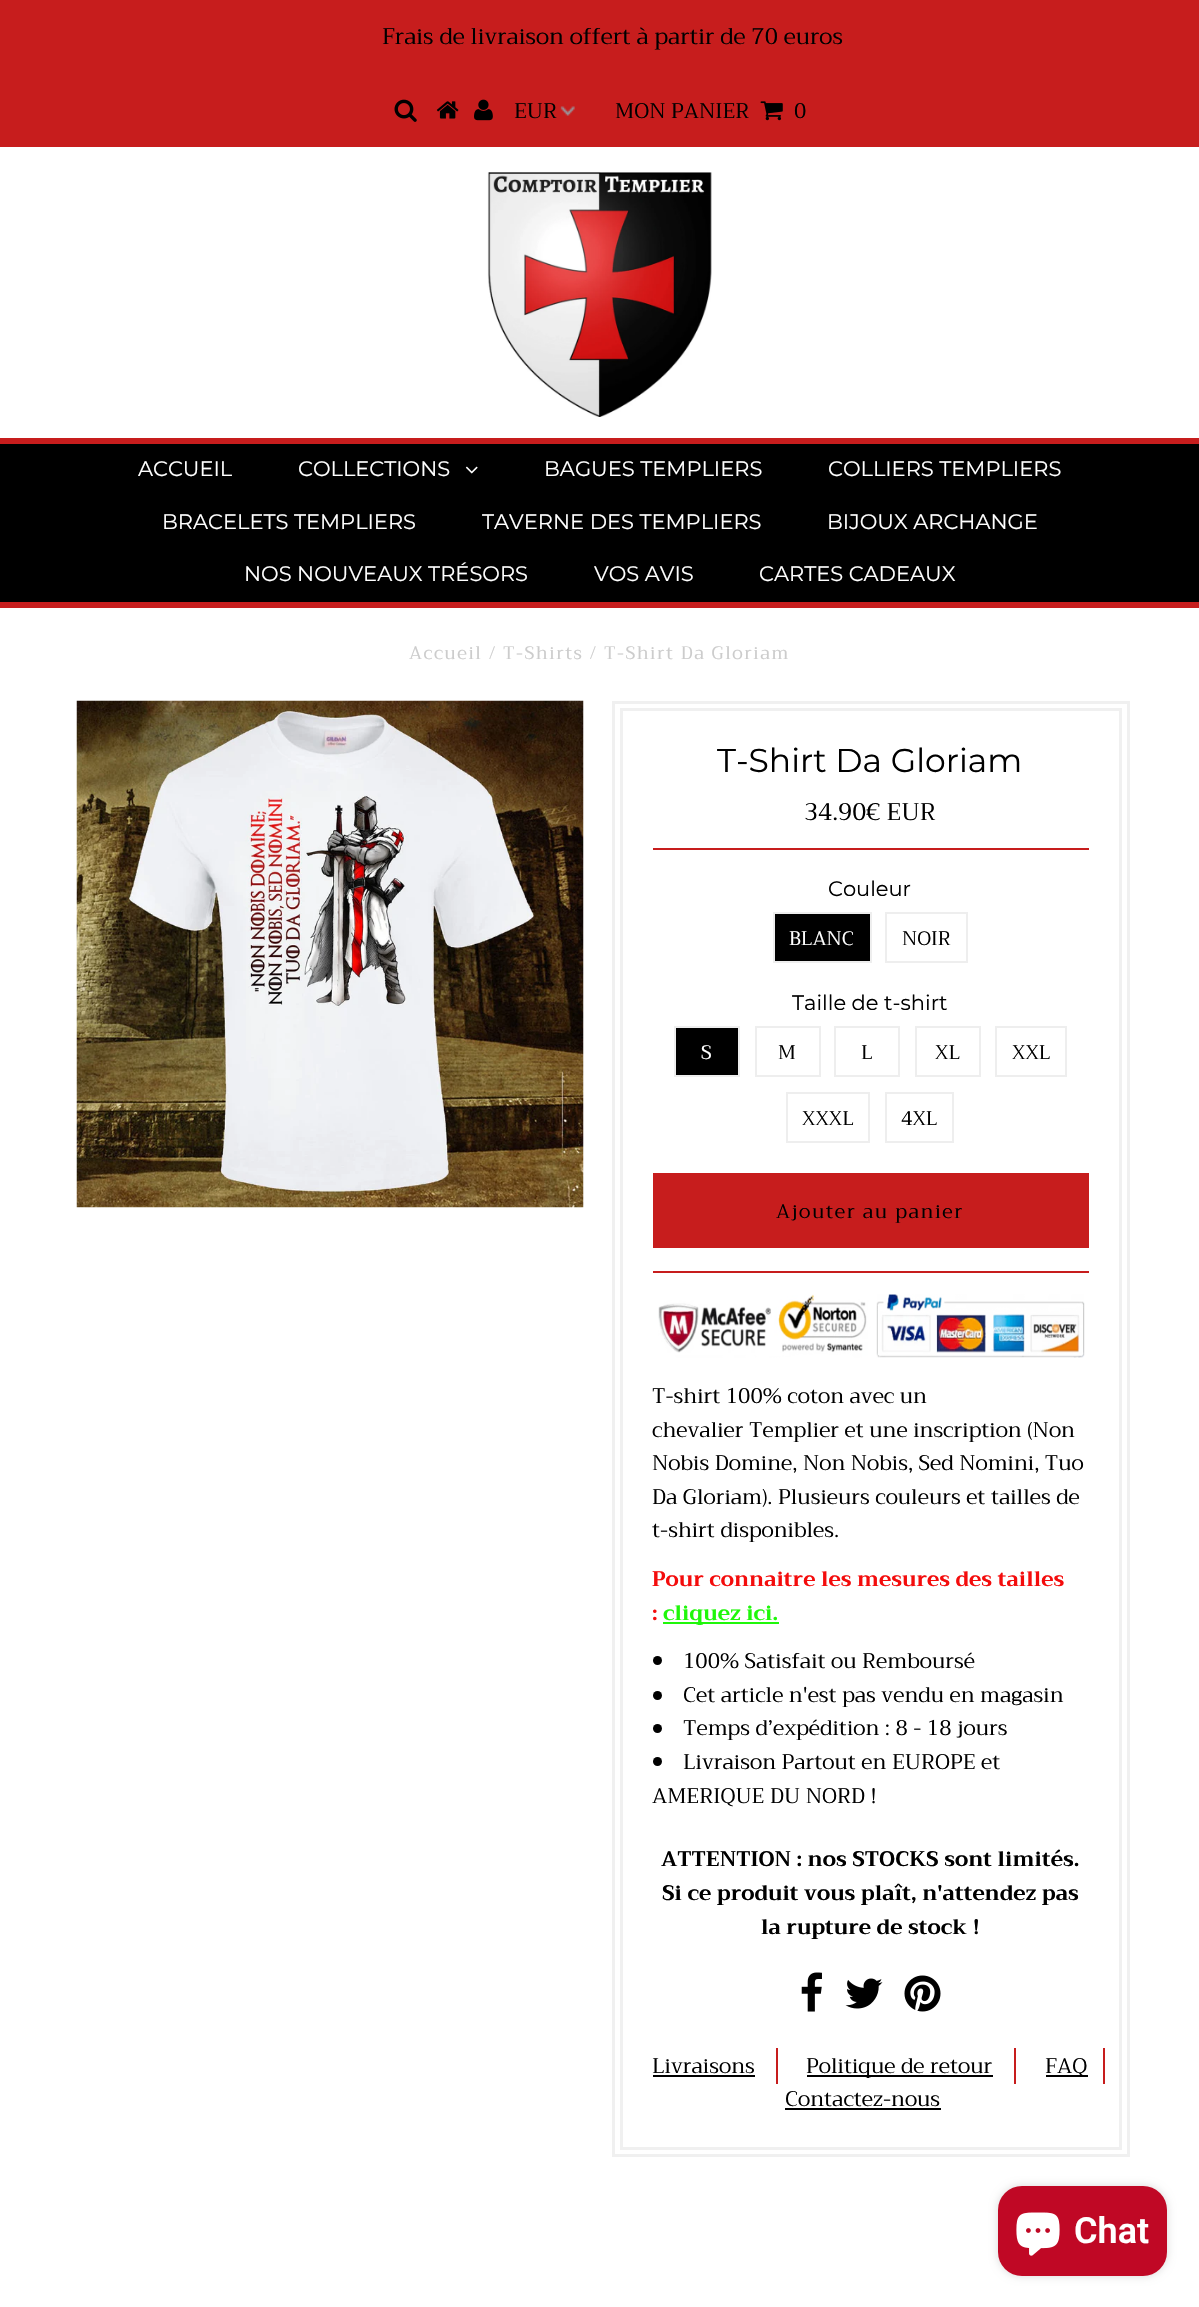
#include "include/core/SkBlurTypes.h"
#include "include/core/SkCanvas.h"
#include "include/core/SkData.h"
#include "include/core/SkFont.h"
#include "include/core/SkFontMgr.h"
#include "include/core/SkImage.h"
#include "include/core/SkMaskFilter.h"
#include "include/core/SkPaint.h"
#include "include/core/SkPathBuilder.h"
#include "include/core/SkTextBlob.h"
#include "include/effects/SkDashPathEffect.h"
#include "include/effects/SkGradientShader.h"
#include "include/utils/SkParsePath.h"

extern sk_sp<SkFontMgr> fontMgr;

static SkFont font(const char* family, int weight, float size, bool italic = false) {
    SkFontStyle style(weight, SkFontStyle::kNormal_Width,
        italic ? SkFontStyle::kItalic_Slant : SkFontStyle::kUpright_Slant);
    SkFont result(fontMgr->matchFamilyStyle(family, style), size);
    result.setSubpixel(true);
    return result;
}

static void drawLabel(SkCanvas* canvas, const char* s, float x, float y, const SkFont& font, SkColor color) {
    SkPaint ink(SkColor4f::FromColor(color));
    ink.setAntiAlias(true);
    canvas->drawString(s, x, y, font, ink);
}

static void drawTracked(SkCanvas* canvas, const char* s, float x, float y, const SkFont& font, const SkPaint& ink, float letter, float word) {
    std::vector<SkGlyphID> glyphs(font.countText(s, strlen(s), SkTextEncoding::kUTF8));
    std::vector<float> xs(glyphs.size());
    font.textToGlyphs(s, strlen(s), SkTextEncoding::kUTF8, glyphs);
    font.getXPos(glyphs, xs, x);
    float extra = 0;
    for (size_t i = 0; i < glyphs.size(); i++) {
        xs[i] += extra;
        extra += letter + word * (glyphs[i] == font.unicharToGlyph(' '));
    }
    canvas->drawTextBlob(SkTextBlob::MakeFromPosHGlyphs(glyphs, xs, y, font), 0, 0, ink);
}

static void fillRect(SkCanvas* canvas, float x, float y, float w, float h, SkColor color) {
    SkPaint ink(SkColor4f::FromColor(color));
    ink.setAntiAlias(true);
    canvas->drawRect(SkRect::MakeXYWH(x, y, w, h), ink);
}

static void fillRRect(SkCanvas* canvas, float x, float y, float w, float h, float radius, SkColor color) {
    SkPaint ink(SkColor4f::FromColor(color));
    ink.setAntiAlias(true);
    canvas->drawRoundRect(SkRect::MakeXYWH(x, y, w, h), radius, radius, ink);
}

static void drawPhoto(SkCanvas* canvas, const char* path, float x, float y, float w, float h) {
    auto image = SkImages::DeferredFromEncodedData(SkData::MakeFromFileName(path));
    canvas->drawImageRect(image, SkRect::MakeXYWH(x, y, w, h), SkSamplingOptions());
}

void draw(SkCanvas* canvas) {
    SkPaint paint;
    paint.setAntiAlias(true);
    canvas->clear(0xFFFFFFFF);
    fillRect(canvas, 0, 0, 1199, 147, 0xFFC71D1D);
    SkFont font1 = font("Trirong", 400, 22.5f);
    drawLabel(canvas, "Frais de livraison offert à partir de 70 euros", 382, 44, font1, 0xFF000000);
    drawPhoto(canvas, "assets/img1.png", 394, 99, 23, 23);
    drawPhoto(canvas, "assets/img2.png", 436, 101, 23, 18);
    drawPhoto(canvas, "assets/img3.png", 474, 99, 19, 22);
    drawPhoto(canvas, "assets/img4.png", 560, 106, 15, 10);
    SkFont font2 = font("Trirong", 400, 21);
    drawLabel(canvas, "EUR", 514, 118, font2, 0xFF000000);
    drawLabel(canvas, "MON PANIER", 615, 118, font2, 0xFF000000);
    drawPhoto(canvas, "assets/img5.png", 760, 101, 23, 20);
    drawLabel(canvas, "0", 794, 118, font2, 0xFF000000);
    drawPhoto(canvas, "assets/img6.png", 487, 172, 225, 245);
    fillRect(canvas, 0, 444, 1199, 158, 0xFF000000);
    fillRect(canvas, 0, 438, 1199, 6, 0xFFC71D1D);
    fillRect(canvas, 0, 602, 1199, 6, 0xFFC71D1D);
    SkFont font3 = font("Montserrat", 400, 21);
    drawLabel(canvas, "ACCUEIL", 138, 476, font3, 0xFFFFFFFF);
    drawLabel(canvas, "COLLECTIONS", 298, 476, font3, 0xFFFFFFFF);
    drawPhoto(canvas, "assets/img7.png", 465, 466, 13, 8);
    drawLabel(canvas, "BAGUES TEMPLIERS", 544, 476, font3, 0xFFFFFFFF);
    drawLabel(canvas, "COLLIERS TEMPLIERS", 828, 476, font3, 0xFFFFFFFF);
    drawLabel(canvas, "BRACELETS TEMPLIERS", 162, 529, font3, 0xFFFFFFFF);
    drawLabel(canvas, "TAVERNE DES TEMPLIERS", 482, 529, font3, 0xFFFFFFFF);
    drawLabel(canvas, "BIJOUX ARCHANGE", 827, 529, font3, 0xFFFFFFFF);
    drawLabel(canvas, "NOS NOUVEAUX TRÉSORS", 244, 581, font3, 0xFFFFFFFF);
    drawLabel(canvas, "VOS AVIS", 594, 581, font3, 0xFFFFFFFF);
    drawLabel(canvas, "CARTES CADEAUX", 759, 581, font3, 0xFFFFFFFF);
    SkFont font4 = font("Trirong", 400, 18);
    paint.setColor(0xFFCCCCCC);
    drawTracked(canvas, "Accueil / T-Shirts / T-Shirt Da Gloriam", 409, 659, font4, paint, 1.5f, 0);
    drawPhoto(canvas, "assets/img8.png", 76, 700, 508, 508);
    paint.setStroke(true);
    paint.setStrokeWidth(3);
    paint.setColor(0xFFF0F0F0);
    canvas->drawRect(SkRect::MakeXYWH(613.5f, 702.5f, 515, 1453), paint);
    canvas->drawRect(SkRect::MakeXYWH(621.5f, 709.5f, 499, 1439), paint);
    SkFont font5 = font("Montserrat", 400, 33);
    drawLabel(canvas, "T-Shirt Da Gloriam", 717, 772, font5, 0xFF000000);
    fillRect(canvas, 653, 1271, 436, 2, 0xFFC71D1D);
    fillRect(canvas, 653, 848, 436, 2, 0xFFC71D1D);
    SkFont font6 = font("Trirong", 400, 24);
    drawLabel(canvas, "34.90€ EUR", 804, 820, font6, 0xFF000000);
    drawLabel(canvas, "Couleur", 828, 896, font3, 0xFF000000);
    paint.setStroke(false);
    paint.setColor(0xFF000000);
    canvas->drawRect(SkRect::MakeXYWH(774, 913, 97, 49), paint);
    paint.setStroke(true);
    paint.setStrokeWidth(2);
    paint.setColor(0xFFEEEEEE);
    canvas->drawRect(SkRect::MakeXYWH(774, 913, 97, 49), paint);
    SkFont font7 = font("Trirong", 400, 19.5f);
    drawLabel(canvas, "BLANC", 789, 945, font7, 0xFFFFFFFF);
    canvas->drawRect(SkRect::MakeXYWH(886, 913, 81, 49), paint);
    drawLabel(canvas, "NOIR", 902, 945, font7, 0xFF000000);
    drawLabel(canvas, "Taille de t-shirt", 792, 1010, font3, 0xFF000000);
    paint.setStroke(false);
    paint.setColor(0xFF000000);
    canvas->drawRect(SkRect::MakeXYWH(675, 1027, 64, 49), paint);
    paint.setStroke(true);
    paint.setColor(0xFFEEEEEE);
    canvas->drawRect(SkRect::MakeXYWH(675, 1027, 64, 49), paint);
    drawLabel(canvas, "S", 701, 1059, font7, 0xFFFFFFFF);
    canvas->drawRect(SkRect::MakeXYWH(756, 1027, 64, 49), paint);
    drawLabel(canvas, "M", 778, 1059, font7, 0xFF000000);
    canvas->drawRect(SkRect::MakeXYWH(835, 1027, 64, 49), paint);
    drawLabel(canvas, "L", 861, 1059, font7, 0xFF000000);
    canvas->drawRect(SkRect::MakeXYWH(916, 1027, 64, 49), paint);
    drawLabel(canvas, "XL", 935, 1059, font7, 0xFF000000);
    canvas->drawRect(SkRect::MakeXYWH(996, 1027, 70, 49), paint);
    drawLabel(canvas, "XXL", 1012, 1059, font7, 0xFF000000);
    canvas->drawRect(SkRect::MakeXYWH(787, 1093, 82, 49), paint);
    drawLabel(canvas, "XXXL", 802, 1125, font7, 0xFF000000);
    canvas->drawRect(SkRect::MakeXYWH(886, 1093, 67, 49), paint);
    drawLabel(canvas, "4XL", 901, 1125, font7, 0xFF000000);
    fillRect(canvas, 653, 1173, 436, 75, 0xFFC71D1D);
    paint.setStroke(false);
    paint.setColor(0xFF000000);
    drawTracked(canvas, "Ajouter au panier", 776, 1218, font7, paint, 1.5f, 0);
    drawPhoto(canvas, "assets/img9.png", 658, 1294, 427, 64);
    drawLabel(canvas, "T-shirt 100% coton avec un", 652, 1403, font2, 0xFF000000);
    drawLabel(canvas, "chevalier Templier et une inscription (Non", 652, 1437, font2, 0xFF000000);
    drawLabel(canvas, "Nobis Domine, Non Nobis, Sed Nomini, Tuo", 652, 1470, font2, 0xFF000000);
    drawLabel(canvas, "Da Gloriam). Plusieurs couleurs et tailles de", 652, 1504, font2, 0xFF000000);
    drawLabel(canvas, "t-shirt disponibles.", 652, 1537, font2, 0xFF000000);
    SkFont font8 = font("Trirong", 700, 21);
    drawLabel(canvas, "Pour connaitre les mesures des tailles", 652, 1586, font8, 0xFFF40C0C);
    drawLabel(canvas, ":", 652, 1620, font8, 0xFFF40C0C);
    fillRect(canvas, 663, 1622, 116, 2, 0xFF1FF70A);
    drawLabel(canvas, "cliquez ici.", 663, 1620, font8, 0xFF1FF70A);
    canvas->drawCircle(657.5f, 1660.5f, 4.5f, paint);
    drawLabel(canvas, "100% Satisfait ou Remboursé", 683, 1668, font2, 0xFF000000);
    canvas->drawCircle(657.5f, 1695.5f, 4.5f, paint);
    drawLabel(canvas, "Cet article n'est pas vendu en magasin", 683, 1702, font2, 0xFF000000);
    canvas->drawCircle(657.5f, 1728.5f, 4.5f, paint);
    drawLabel(canvas, "Temps d’expédition : 8 - 18 jours", 683, 1735, font2, 0xFF000000);
    canvas->drawCircle(657.5f, 1761.5f, 4.5f, paint);
    drawLabel(canvas, "Livraison Partout en EUROPE et", 683, 1769, font2, 0xFF000000);
    drawLabel(canvas, "AMERIQUE DU NORD !", 652, 1803, font2, 0xFF000000);
    drawLabel(canvas, "ATTENTION : nos STOCKS sont limités.", 661, 1866, font8, 0xFF000000);
    drawLabel(canvas, "Si ce produit vous plaît, n'attendez pas", 662, 1900, font8, 0xFF000000);
    drawLabel(canvas, "la rupture de stock !", 761, 1934, font8, 0xFF000000);
    drawPhoto(canvas, "assets/img10.png", 801, 1972, 21, 40);
    drawPhoto(canvas, "assets/img11.png", 845, 1978, 38, 31);
    drawPhoto(canvas, "assets/img12.png", 904, 1975, 37, 37);
    drawLabel(canvas, "Livraisons", 652, 2073, font2, 0xFF000000);
    fillRect(canvas, 776, 2048, 2, 36, 0xFFC71D1D);
    fillRect(canvas, 653, 2075, 102, 2, 0xFF000000);
    fillRect(canvas, 807, 2075, 186, 2, 0xFF000000);
    drawLabel(canvas, "Politique de retour", 806, 2073, font2, 0xFF000000);
    fillRect(canvas, 1014, 2048, 2, 36, 0xFFC71D1D);
    fillRect(canvas, 1046, 2075, 42, 2, 0xFF000000);
    drawLabel(canvas, "FAQ", 1045, 2073, font2, 0xFF000000);
    fillRect(canvas, 1103, 2048, 2, 36, 0xFFC71D1D);
    drawLabel(canvas, "Contactez-nous", 785, 2106, font2, 0xFF000000);
    fillRect(canvas, 785, 2108, 156, 2, 0xFF000000);
    paint.setColor(0x26000000);
    paint.setMaskFilter(SkMaskFilter::MakeBlur(kNormal_SkBlurStyle, 4));
    canvas->drawRoundRect(SkRect::MakeXYWH(998, 2186, 169, 90), 24, 24, paint);
    paint.setMaskFilter(nullptr);
    fillRRect(canvas, 998, 2186, 169, 90, 24, 0xFFC00825);
    drawPhoto(canvas, "assets/img13.png", 1016, 2212, 44, 44);
    SkFont font9 = font("Roboto", 600, 36);
    drawLabel(canvas, "Chat", 1074, 2243, font9, 0xFFFFFFFF);
}
